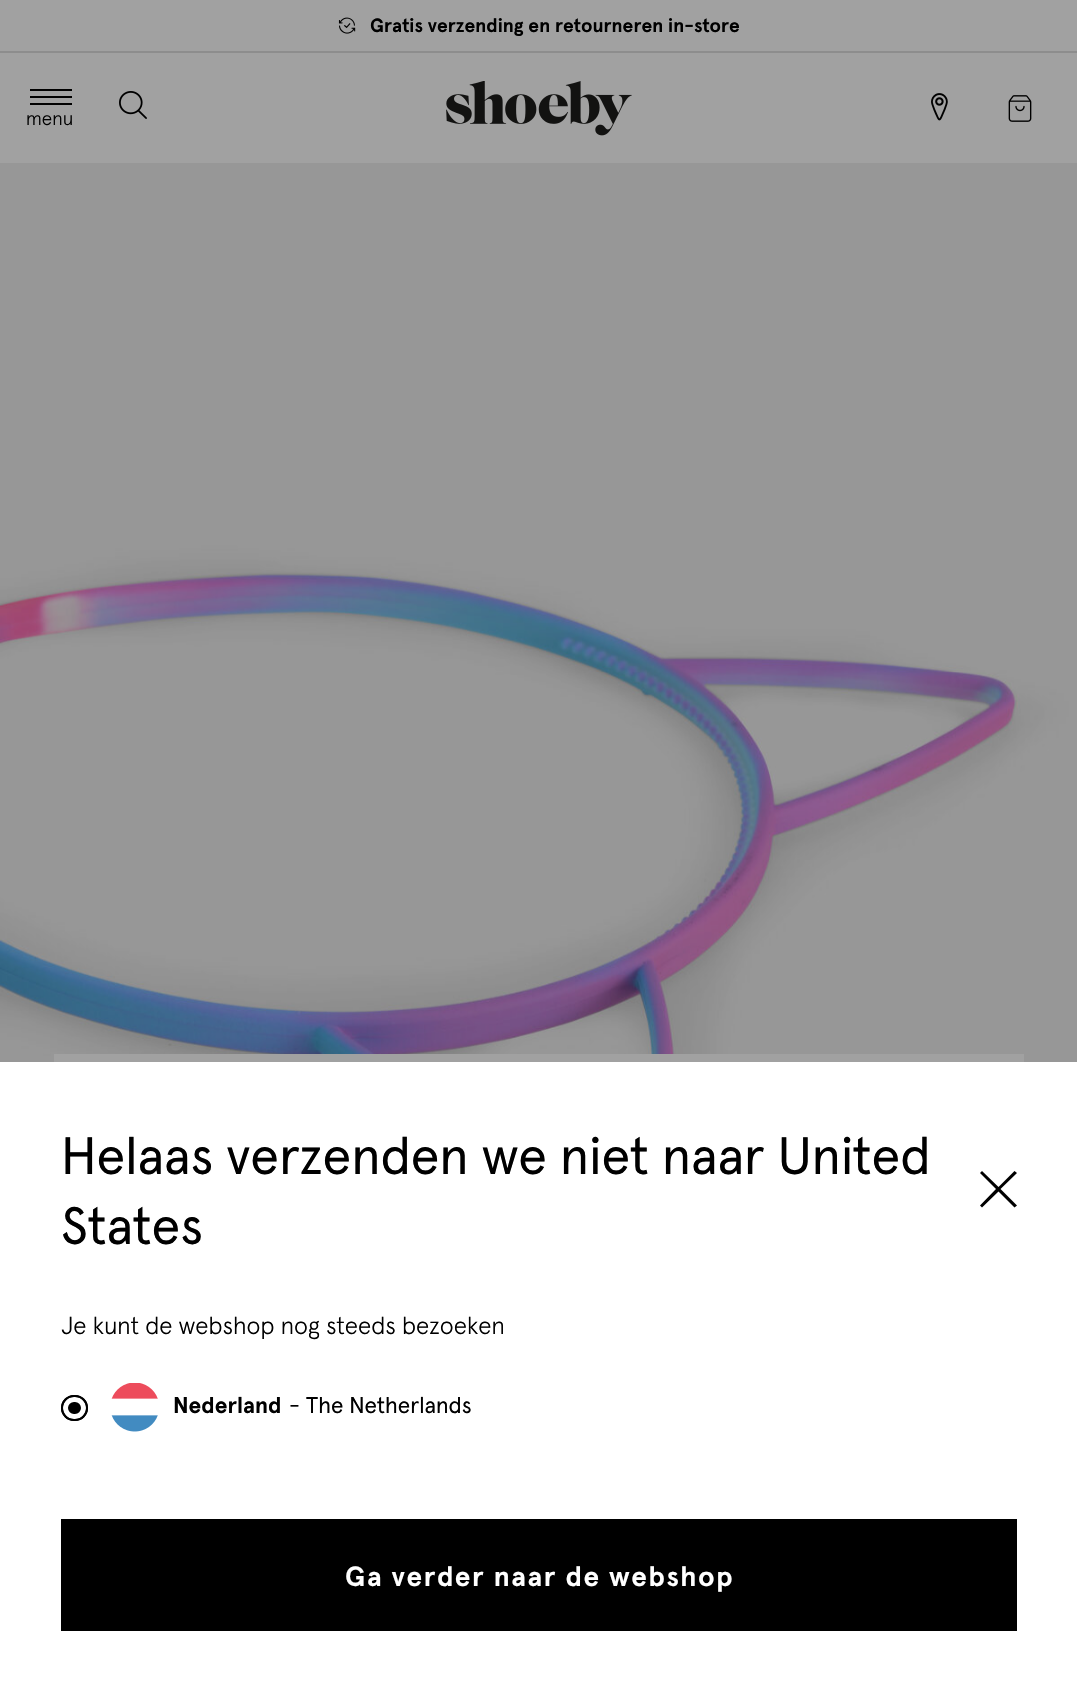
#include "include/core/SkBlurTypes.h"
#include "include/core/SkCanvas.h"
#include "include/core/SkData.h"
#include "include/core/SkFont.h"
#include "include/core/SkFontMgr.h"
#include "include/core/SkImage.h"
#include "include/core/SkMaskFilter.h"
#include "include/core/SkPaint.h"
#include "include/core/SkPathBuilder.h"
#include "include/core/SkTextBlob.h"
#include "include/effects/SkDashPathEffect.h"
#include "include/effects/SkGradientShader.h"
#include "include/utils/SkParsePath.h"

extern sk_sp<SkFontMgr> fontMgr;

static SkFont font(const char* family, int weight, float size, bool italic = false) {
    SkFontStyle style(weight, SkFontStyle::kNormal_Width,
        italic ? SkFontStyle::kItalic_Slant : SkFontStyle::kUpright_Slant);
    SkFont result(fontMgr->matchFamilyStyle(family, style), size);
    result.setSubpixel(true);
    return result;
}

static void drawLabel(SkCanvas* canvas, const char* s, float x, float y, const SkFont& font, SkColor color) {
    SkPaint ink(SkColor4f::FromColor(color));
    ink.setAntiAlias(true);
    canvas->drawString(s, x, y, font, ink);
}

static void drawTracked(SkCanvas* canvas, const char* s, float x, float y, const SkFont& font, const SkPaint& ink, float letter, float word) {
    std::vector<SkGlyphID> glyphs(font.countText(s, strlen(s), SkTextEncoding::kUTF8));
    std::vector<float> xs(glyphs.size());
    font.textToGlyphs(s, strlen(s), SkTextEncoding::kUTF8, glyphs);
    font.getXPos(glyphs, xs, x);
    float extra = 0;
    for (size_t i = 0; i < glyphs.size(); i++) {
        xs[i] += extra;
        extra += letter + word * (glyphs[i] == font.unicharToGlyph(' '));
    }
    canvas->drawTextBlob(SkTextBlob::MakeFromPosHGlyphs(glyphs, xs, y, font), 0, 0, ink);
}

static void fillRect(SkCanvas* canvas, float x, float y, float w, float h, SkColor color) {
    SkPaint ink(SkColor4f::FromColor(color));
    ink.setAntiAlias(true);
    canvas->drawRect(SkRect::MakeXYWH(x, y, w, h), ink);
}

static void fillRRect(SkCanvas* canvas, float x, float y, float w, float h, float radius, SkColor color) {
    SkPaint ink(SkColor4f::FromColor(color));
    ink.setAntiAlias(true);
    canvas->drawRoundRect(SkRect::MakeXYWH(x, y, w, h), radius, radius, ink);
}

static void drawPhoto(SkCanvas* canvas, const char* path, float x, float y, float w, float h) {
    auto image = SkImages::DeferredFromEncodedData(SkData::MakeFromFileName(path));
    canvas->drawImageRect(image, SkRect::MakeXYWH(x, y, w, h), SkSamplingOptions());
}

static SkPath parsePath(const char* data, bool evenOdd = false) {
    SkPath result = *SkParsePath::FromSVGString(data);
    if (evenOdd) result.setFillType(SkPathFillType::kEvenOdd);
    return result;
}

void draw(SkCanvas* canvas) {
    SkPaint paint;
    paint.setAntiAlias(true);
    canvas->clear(0xFFA1A1A1);
    fillRect(canvas, 0, 51, 1077, 2, 0xFF8D8D8D);
    drawPhoto(canvas, "assets/img1.png", 338, 17, 18, 17);
    SkFont font1 = font("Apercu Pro", 700, 19.25f);
    drawLabel(canvas, "Gratis verzending en retourneren in-store", 370, 32, font1, 0xFF000000);
    drawPhoto(canvas, "assets/img2.png", 119, 91, 28, 28);
    paint.setColor(0xFF000000);
    canvas->drawPath(parsePath("M30 96H72V98H30ZM30 89H72V91H30ZM30 103H72V105H30Z"), paint);
    SkFont font2 = font("Apercu Pro", 300, 19.25f);
    drawLabel(canvas, "menu", 26, 125, font2, 0xFF000000);
    drawPhoto(canvas, "assets/img3.png", 446, 81, 186, 55);
    drawPhoto(canvas, "assets/img4.png", 931, 93, 17, 28);
    drawPhoto(canvas, "assets/img5.png", 1008, 95, 24, 27);
    drawPhoto(canvas, "assets/img6.png", 0, 163, 1077, 899);
    fillRect(canvas, 54, 1054, 970, 8, 0xFCA1A1A1);
    fillRect(canvas, 0, 1062, 1077, 629, 0xFFFFFFFF);
    SkFont font3 = font("Apercu Pro", 400, 52.5f);
    drawLabel(canvas, "Helaas verzenden we niet naar United", 61, 1174, font3, 0xFF000000);
    drawLabel(canvas, "States", 61, 1244, font3, 0xFF000000);
    canvas->drawPath(parsePath("M1017 1173L1014.5 1171L998.5 1187L982 1171L980 1173L996 1189L980 1205.5L982 1207.5L998.5 1191.5L1014.5 1207.5L1017 1205.5L1000.5 1189Z"), paint);
    SkFont font4 = font("Apercu Pro", 300, 24.5f);
    drawLabel(canvas, "Je kunt de webshop nog steeds bezoeken", 61, 1334, font4, 0xFF000000);
    fillRRect(canvas, 61, 1395, 27, 26, 13, 0xFF000000);
    paint.setStroke(true);
    paint.setStrokeWidth(5);
    paint.setColor(0xFFFFFFFF);
    canvas->drawRoundRect(SkRect::MakeXYWH(65.5f, 1399.5f, 18, 17), 8.5f, 8.5f, paint);
    paint.setStrokeWidth(2);
    paint.setColor(0xFF000000);
    canvas->drawRoundRect(SkRect::MakeXYWH(62, 1396, 25, 24), 12, 12, paint);
    drawPhoto(canvas, "assets/img7.png", 111, 1383, 47, 49);
    SkFont font5 = font("Apercu Pro", 700, 22.75f);
    drawLabel(canvas, "Nederland", 173, 1413, font5, 0xFF000000);
    SkFont font6 = font("Apercu Pro", 400, 22.75f);
    drawLabel(canvas, "- The Netherlands", 289, 1413, font6, 0xFF000000);
    fillRect(canvas, 61, 1519, 956, 112, 0xFF000000);
    SkFont font7 = font("Apercu Pro", 700, 28);
    paint.setStroke(false);
    paint.setColor(0xFFFFFFFF);
    drawTracked(canvas, "Ga verder naar de webshop", 345, 1586, font7, paint, 1.5f, 0);
}
